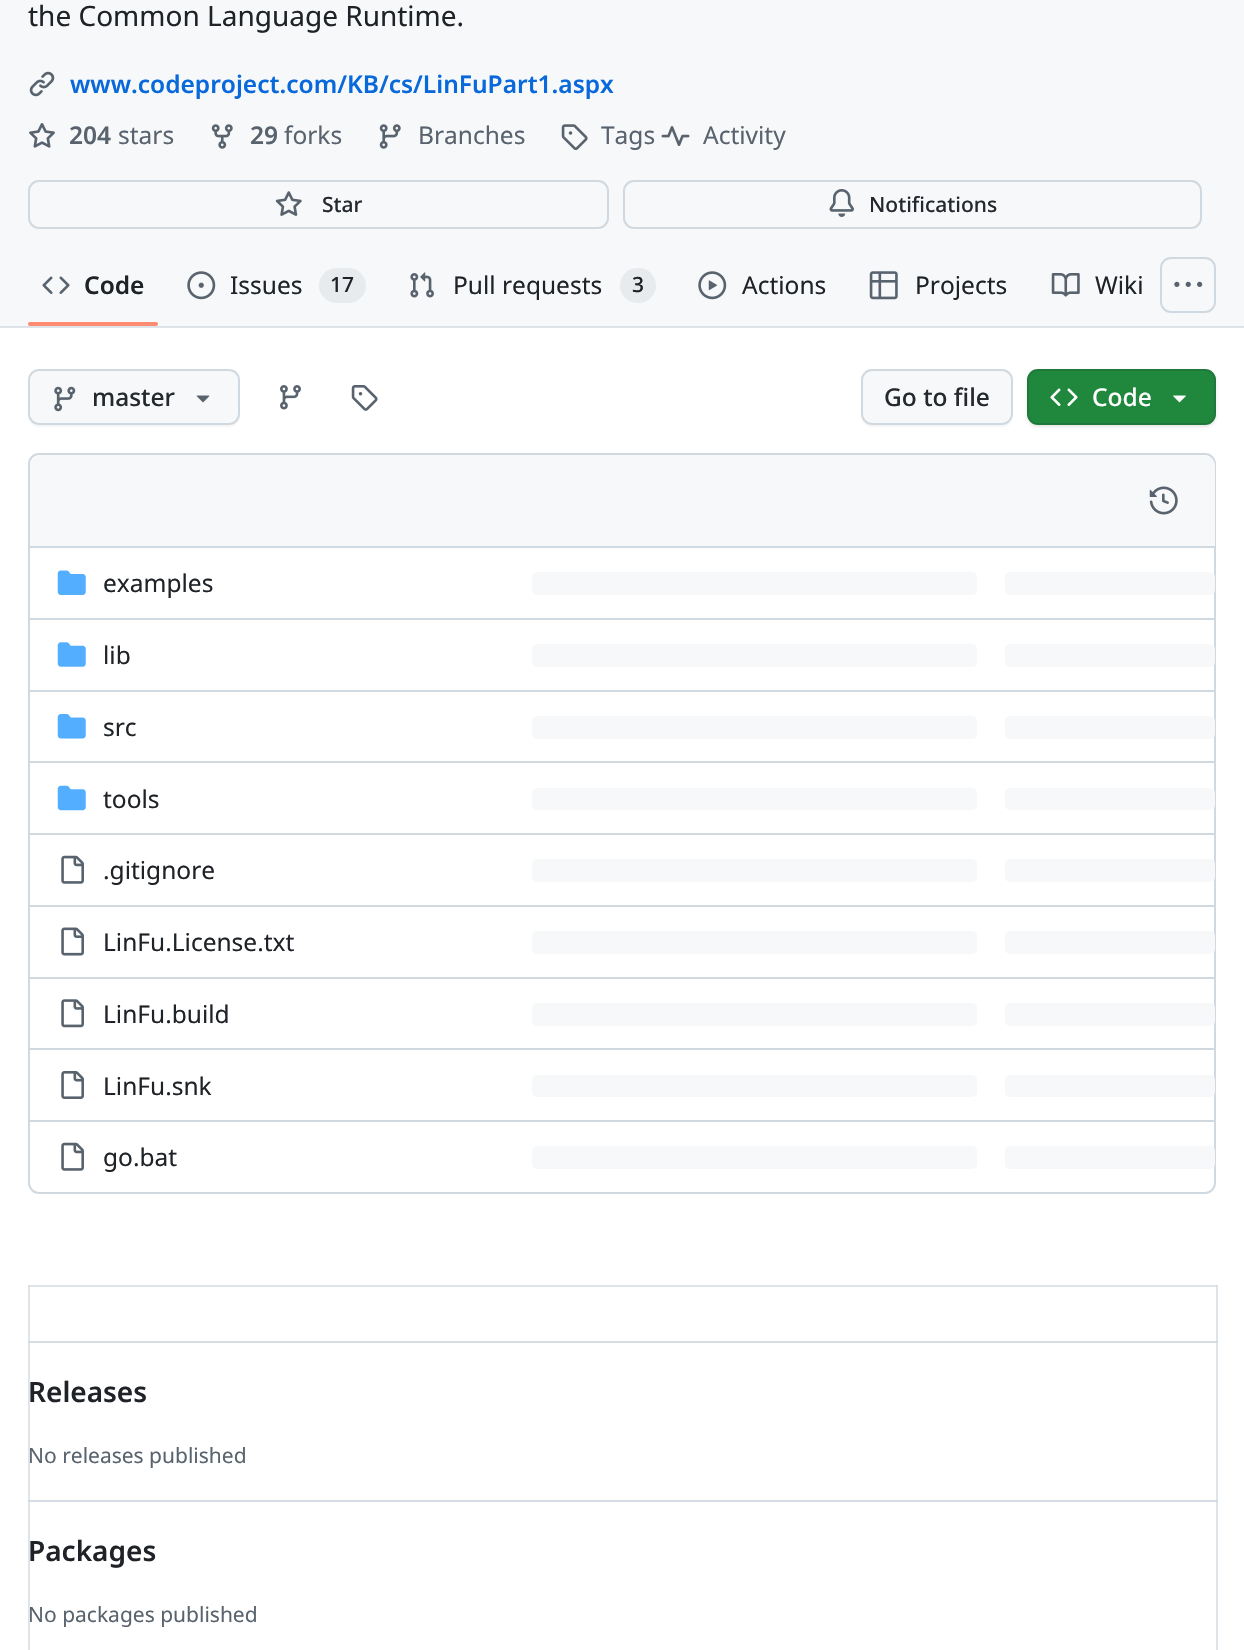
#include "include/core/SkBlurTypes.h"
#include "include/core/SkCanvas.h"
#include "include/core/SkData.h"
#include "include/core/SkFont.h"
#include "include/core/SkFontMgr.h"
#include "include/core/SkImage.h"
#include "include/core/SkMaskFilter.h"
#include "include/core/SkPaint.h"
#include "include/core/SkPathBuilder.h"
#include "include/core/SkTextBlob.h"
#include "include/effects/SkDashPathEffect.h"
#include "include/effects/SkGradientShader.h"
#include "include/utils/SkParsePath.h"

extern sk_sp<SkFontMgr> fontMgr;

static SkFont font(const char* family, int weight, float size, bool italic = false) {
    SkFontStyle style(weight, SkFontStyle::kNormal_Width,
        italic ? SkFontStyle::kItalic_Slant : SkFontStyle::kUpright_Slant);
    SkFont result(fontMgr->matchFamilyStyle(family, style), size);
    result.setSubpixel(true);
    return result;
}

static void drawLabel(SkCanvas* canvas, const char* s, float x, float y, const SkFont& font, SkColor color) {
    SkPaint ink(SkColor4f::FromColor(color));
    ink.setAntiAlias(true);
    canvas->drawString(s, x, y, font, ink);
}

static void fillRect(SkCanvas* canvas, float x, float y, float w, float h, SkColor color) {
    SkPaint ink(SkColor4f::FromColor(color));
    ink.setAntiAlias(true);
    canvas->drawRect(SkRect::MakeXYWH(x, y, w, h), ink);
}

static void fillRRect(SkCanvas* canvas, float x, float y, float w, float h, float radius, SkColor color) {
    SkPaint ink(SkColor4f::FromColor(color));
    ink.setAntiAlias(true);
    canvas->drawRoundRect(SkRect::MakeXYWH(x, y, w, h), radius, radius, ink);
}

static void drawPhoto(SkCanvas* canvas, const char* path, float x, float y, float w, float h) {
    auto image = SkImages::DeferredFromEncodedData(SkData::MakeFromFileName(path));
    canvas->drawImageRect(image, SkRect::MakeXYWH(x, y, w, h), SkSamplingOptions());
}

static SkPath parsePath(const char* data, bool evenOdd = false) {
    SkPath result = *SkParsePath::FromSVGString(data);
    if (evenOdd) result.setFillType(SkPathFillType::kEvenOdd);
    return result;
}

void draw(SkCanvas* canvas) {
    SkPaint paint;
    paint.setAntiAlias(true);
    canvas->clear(0xFFFFFFFF);
    fillRect(canvas, 0, 327, 1244, 1, 0xFFDFE4E9);
    fillRect(canvas, 28, 1285, 2, 365, 0xFFDFE4E9);
    fillRect(canvas, 1216, 1285, 2, 365, 0xFFDFE4E9);
    fillRect(canvas, 0, 0, 1244, 326, 0xFFF6F8FA);
    fillRect(canvas, 0, 326, 1244, 1, 0xFFDCE2E8);
    SkFont font1 = font("Noto Sans", 400, 28);
    drawLabel(canvas, "the Common Language Runtime.", 28, 26, font1, 0xFF1F2328);
    drawPhoto(canvas, "assets/img1.png", 29, 71, 26, 26);
    SkFont font2 = font("Noto Sans", 600, 24.5f);
    drawLabel(canvas, "www.codeproject.com/KB/cs/LinFuPart1.aspx", 70, 93, font2, 0xFF0969DA);
    drawPhoto(canvas, "assets/img2.png", 29, 123, 26, 25);
    drawLabel(canvas, "204", 69, 144, font2, 0xFF59636E);
    SkFont font3 = font("Noto Sans", 400, 24.5f);
    drawLabel(canvas, "stars", 118, 144, font3, 0xFF59636E);
    drawPhoto(canvas, "assets/img3.png", 211, 124, 22, 25);
    drawLabel(canvas, "29", 250, 144, font2, 0xFF59636E);
    drawLabel(canvas, "forks", 284, 144, font3, 0xFF59636E);
    drawPhoto(canvas, "assets/img4.png", 379, 124, 22, 25);
    drawLabel(canvas, "Branches", 418, 144, font3, 0xFF59636E);
    drawPhoto(canvas, "assets/img5.png", 561, 124, 27, 27);
    drawLabel(canvas, "Tags", 601, 144, font3, 0xFF59636E);
    drawPhoto(canvas, "assets/img6.png", 661, 126, 29, 20);
    drawLabel(canvas, "Activity", 703, 144, font3, 0xFF59636E);
    paint.setStroke(true);
    paint.setStrokeWidth(2);
    paint.setColor(0xFFD1D9E0);
    canvas->drawRoundRect(SkRect::MakeXYWH(29, 181, 579, 47), 10, 10, paint);
    drawPhoto(canvas, "assets/img7.png", 275, 191, 27, 25);
    SkFont font4 = font("Noto Sans", 500, 21);
    drawLabel(canvas, "Star", 322, 212, font4, 0xFF25292E);
    canvas->drawRoundRect(SkRect::MakeXYWH(624, 181, 577, 47), 10, 10, paint);
    drawPhoto(canvas, "assets/img8.png", 829, 189, 25, 28);
    drawLabel(canvas, "Notifications", 869, 212, font4, 0xFF25292E);
    drawPhoto(canvas, "assets/img9.png", 42, 276, 28, 18);
    drawLabel(canvas, "Code", 84, 294, font2, 0xFF1F2328);
    fillRRect(canvas, 28, 322, 130, 4, 2, 0xFFFD8C73);
    drawPhoto(canvas, "assets/img10.png", 187, 271, 29, 29);
    drawLabel(canvas, "Issues", 230, 294, font3, 0xFF1F2328);
    fillRRect(canvas, 319, 268, 47, 35, 17.5f, 0xFFE8EBEE);
    drawLabel(canvas, "17", 330, 292, font4, 0xFF1F2328);
    drawPhoto(canvas, "assets/img11.png", 410, 272, 24, 26);
    drawLabel(canvas, "Pull requests", 453, 294, font3, 0xFF1F2328);
    fillRRect(canvas, 620, 268, 36, 35, 17.5f, 0xFFE8EBEE);
    drawLabel(canvas, "3", 632, 292, font4, 0xFF1F2328);
    drawPhoto(canvas, "assets/img12.png", 698, 271, 29, 29);
    drawLabel(canvas, "Actions", 742, 294, font3, 0xFF1F2328);
    drawPhoto(canvas, "assets/img13.png", 869, 271, 29, 29);
    drawLabel(canvas, "Projects", 915, 294, font3, 0xFF1F2328);
    drawPhoto(canvas, "assets/img14.png", 1051, 273, 29, 24);
    drawLabel(canvas, "Wiki", 1095, 294, font3, 0xFF1F2328);
    canvas->drawRoundRect(SkRect::MakeXYWH(1161, 258, 54, 54), 10, 10, paint);
    drawPhoto(canvas, "assets/img15.png", 1174, 281, 29, 6);
    paint.setStroke(false);
    paint.setColor(0xFFF6F6F6);
    canvas->drawPath(parsePath("M28 415V416C28 422 33 427 39 427H229C235 427 240 422 240 416V380V415C240 421 235 425 229 425H38C33 425 28 421 28 415Z"), paint);
    paint.setColor(0xFFF6F8FA);
    canvas->drawRoundRect(SkRect::MakeXYWH(29, 370, 210, 54), 10, 10, paint);
    paint.setStroke(true);
    paint.setColor(0xFFD1D9E0);
    canvas->drawRoundRect(SkRect::MakeXYWH(29, 370, 210, 54), 10, 10, paint);
    drawPhoto(canvas, "assets/img16.png", 54, 386, 22, 26);
    SkFont font5 = font("Noto Sans", 500, 24.5f);
    drawLabel(canvas, "master", 92, 406, font5, 0xFF25292E);
    drawPhoto(canvas, "assets/img17.png", 196, 395, 14, 8);
    drawPhoto(canvas, "assets/img18.png", 280, 385, 21, 25);
    drawPhoto(canvas, "assets/img19.png", 351, 385, 27, 26);
    paint.setStroke(false);
    paint.setColor(0xFFF6F6F6);
    canvas->drawPath(parsePath("M861 415V416C861 422 866 427 872 427H1002C1008 427 1012 423 1013 417C1012 422 1008 425 1003 425H872C866 425 861 421 861 415Z"), paint);
    paint.setColor(0xFFF6F8FA);
    canvas->drawRoundRect(SkRect::MakeXYWH(862, 370, 150, 54), 10, 10, paint);
    paint.setStroke(true);
    paint.setColor(0xFFD1D9E0);
    canvas->drawRoundRect(SkRect::MakeXYWH(862, 370, 150, 54), 10, 10, paint);
    drawLabel(canvas, "Go to file", 884, 406, font5, 0xFF25292E);
    paint.setStroke(false);
    paint.setColor(0x0F1F2328);
    paint.setMaskFilter(SkMaskFilter::MakeBlur(kNormal_SkBlurStyle, 2.5f));
    canvas->drawRoundRect(SkRect::MakeXYWH(1027, 371, 189, 56), 11, 11, paint);
    paint.setMaskFilter(nullptr);
    paint.setMaskFilter(SkMaskFilter::MakeBlur(kNormal_SkBlurStyle, 1));
    canvas->drawRoundRect(SkRect::MakeXYWH(1027, 371, 189, 56), 11, 11, paint);
    paint.setMaskFilter(nullptr);
    fillRRect(canvas, 1027, 369, 189, 56, 11, 0xFF1F883D);
    paint.setStroke(true);
    paint.setColor(0x261F2328);
    canvas->drawRoundRect(SkRect::MakeXYWH(1028, 370, 187, 54), 10, 10, paint);
    drawPhoto(canvas, "assets/img20.png", 1050, 388, 28, 18);
    drawLabel(canvas, "Code", 1092, 406, font5, 0xFFFFFFFF);
    drawPhoto(canvas, "assets/img21.png", 1173, 395, 13, 8);
    paint.setColor(0xFFD1D9E0);
    canvas->drawRoundRect(SkRect::MakeXYWH(29, 454, 1186, 739), 10, 10, paint);
    paint.setStroke(false);
    paint.setColor(0xFFF6F8FA);
    canvas->drawPath(parsePath("M41 455H1204C1210 455 1215 460 1215 466V546H30V466C30 460 35 455 41 455Z"), paint);
    drawPhoto(canvas, "assets/img22.png", 1149, 486, 29, 29);
    fillRect(canvas, 30, 546, 1185, 2, 0xFFD1D9E0);
    drawPhoto(canvas, "assets/img23.png", 57, 570, 29, 25);
    drawLabel(canvas, "examples", 103, 592, font3, 0xFF1F2328);
    fillRRect(canvas, 532, 572, 445, 23, 5, 0xFFF6F8FA);
    fillRRect(canvas, 1005, 572, 210, 23, 5, 0xFFF6F8FA);
    fillRect(canvas, 30, 618, 1185, 2, 0xFFD1D9E0);
    drawPhoto(canvas, "assets/img24.png", 57, 642, 29, 25);
    drawLabel(canvas, "lib", 103, 664, font3, 0xFF1F2328);
    fillRRect(canvas, 532, 644, 445, 23, 5, 0xFFF6F8FA);
    fillRRect(canvas, 1005, 644, 210, 23, 5, 0xFFF6F8FA);
    fillRect(canvas, 30, 690, 1185, 2, 0xFFD1D9E0);
    drawPhoto(canvas, "assets/img25.png", 57, 714, 29, 25);
    drawLabel(canvas, "src", 103, 736, font3, 0xFF1F2328);
    fillRRect(canvas, 532, 716, 445, 23, 5, 0xFFF6F8FA);
    fillRRect(canvas, 1005, 716, 210, 23, 5, 0xFFF6F8FA);
    fillRect(canvas, 30, 761, 1185, 2, 0xFFD1D9E0);
    drawPhoto(canvas, "assets/img26.png", 57, 785, 29, 26);
    drawLabel(canvas, "tools", 103, 808, font3, 0xFF1F2328);
    fillRRect(canvas, 532, 788, 445, 22, 5, 0xFFF6F8FA);
    fillRRect(canvas, 1005, 788, 210, 22, 5, 0xFFF6F8FA);
    fillRect(canvas, 30, 833, 1185, 2, 0xFFD1D9E0);
    drawPhoto(canvas, "assets/img27.png", 61, 855, 23, 29);
    drawLabel(canvas, ".gitignore", 103, 879, font3, 0xFF1F2328);
    fillRRect(canvas, 532, 859, 445, 23, 5, 0xFFF6F8FA);
    fillRRect(canvas, 1005, 859, 210, 23, 5, 0xFFF6F8FA);
    fillRect(canvas, 30, 905, 1185, 2, 0xFFD1D9E0);
    drawPhoto(canvas, "assets/img28.png", 61, 927, 23, 29);
    drawLabel(canvas, "LinFu.License.txt", 103, 951, font3, 0xFF1F2328);
    fillRRect(canvas, 532, 931, 445, 23, 5, 0xFFF6F8FA);
    fillRRect(canvas, 1005, 931, 210, 23, 5, 0xFFF6F8FA);
    fillRect(canvas, 30, 977, 1185, 2, 0xFFD1D9E0);
    drawPhoto(canvas, "assets/img29.png", 61, 999, 23, 29);
    drawLabel(canvas, "LinFu.build", 103, 1023, font3, 0xFF1F2328);
    fillRRect(canvas, 532, 1003, 445, 23, 5, 0xFFF6F8FA);
    fillRRect(canvas, 1005, 1003, 210, 23, 5, 0xFFF6F8FA);
    fillRect(canvas, 30, 1048, 1185, 2, 0xFFD1D9E0);
    drawPhoto(canvas, "assets/img30.png", 61, 1071, 23, 28);
    drawLabel(canvas, "LinFu.snk", 103, 1095, font3, 0xFF1F2328);
    fillRRect(canvas, 532, 1075, 445, 22, 5, 0xFFF6F8FA);
    fillRRect(canvas, 1005, 1075, 210, 22, 5, 0xFFF6F8FA);
    fillRect(canvas, 30, 1120, 1185, 2, 0xFFD1D9E0);
    drawPhoto(canvas, "assets/img27.png", 61, 1142, 23, 29);
    drawLabel(canvas, "go.bat", 103, 1166, font3, 0xFF1F2328);
    fillRRect(canvas, 532, 1146, 445, 23, 5, 0xFFF6F8FA);
    fillRRect(canvas, 1005, 1146, 210, 23, 5, 0xFFF6F8FA);
    fillRect(canvas, 28, 1285, 1190, 2, 0xFFDFE4E9);
    fillRect(canvas, 28, 1285, 2, 2, 0xFFD5DCE3);
    fillRect(canvas, 1216, 1285, 2, 2, 0xFFD5DCE3);
    fillRect(canvas, 28, 1341, 1190, 2, 0xFFD5DCE3);
    fillRect(canvas, 28, 1342, 2, 1, 0xFFD2DAE1);
    fillRect(canvas, 28, 1341, 2, 1, 0xFFD1D9E0);
    fillRect(canvas, 1216, 1342, 2, 1, 0xFFD2DAE1);
    fillRect(canvas, 1216, 1341, 2, 1, 0xFFD1D9E0);
    SkFont font6 = font("Noto Sans", 600, 28);
    drawLabel(canvas, "Releases", 28, 1402, font6, 0xFF1F2328);
    SkFont font7 = font("Noto Sans", 400, 21);
    drawLabel(canvas, "No releases published", 28, 1463, font7, 0xFF59636E);
    fillRect(canvas, 28, 1500, 1190, 2, 0xFFD5DCE3);
    fillRect(canvas, 28, 1500, 2, 2, 0xFFD1D9E0);
    fillRect(canvas, 1216, 1500, 2, 2, 0xFFD1D9E0);
    drawLabel(canvas, "Packages", 28, 1561, font6, 0xFF1F2328);
    drawLabel(canvas, "No packages published", 28, 1622, font7, 0xFF59636E);
}
